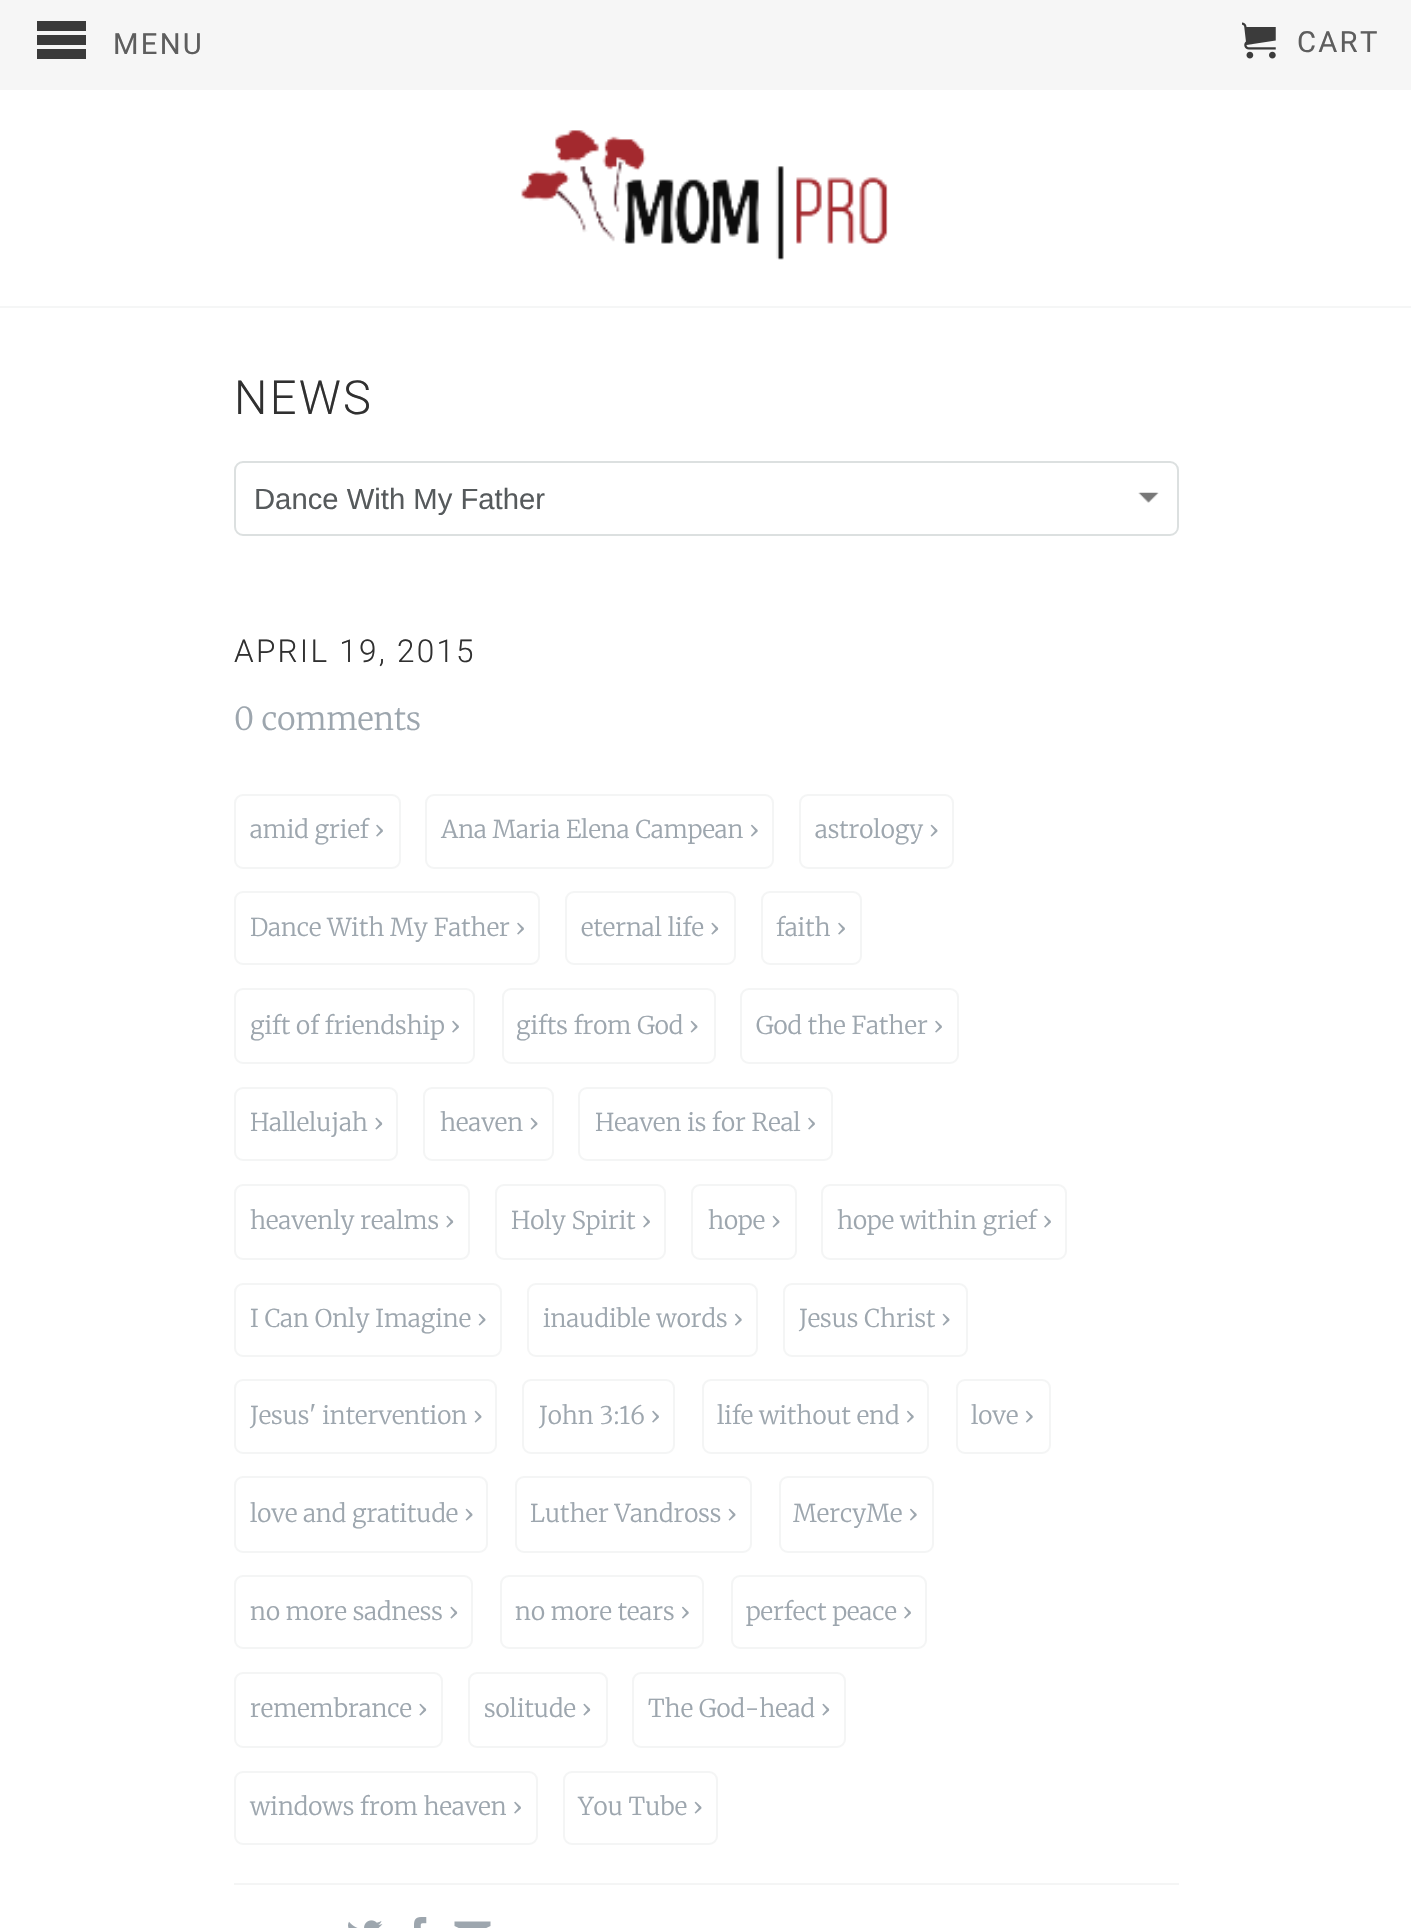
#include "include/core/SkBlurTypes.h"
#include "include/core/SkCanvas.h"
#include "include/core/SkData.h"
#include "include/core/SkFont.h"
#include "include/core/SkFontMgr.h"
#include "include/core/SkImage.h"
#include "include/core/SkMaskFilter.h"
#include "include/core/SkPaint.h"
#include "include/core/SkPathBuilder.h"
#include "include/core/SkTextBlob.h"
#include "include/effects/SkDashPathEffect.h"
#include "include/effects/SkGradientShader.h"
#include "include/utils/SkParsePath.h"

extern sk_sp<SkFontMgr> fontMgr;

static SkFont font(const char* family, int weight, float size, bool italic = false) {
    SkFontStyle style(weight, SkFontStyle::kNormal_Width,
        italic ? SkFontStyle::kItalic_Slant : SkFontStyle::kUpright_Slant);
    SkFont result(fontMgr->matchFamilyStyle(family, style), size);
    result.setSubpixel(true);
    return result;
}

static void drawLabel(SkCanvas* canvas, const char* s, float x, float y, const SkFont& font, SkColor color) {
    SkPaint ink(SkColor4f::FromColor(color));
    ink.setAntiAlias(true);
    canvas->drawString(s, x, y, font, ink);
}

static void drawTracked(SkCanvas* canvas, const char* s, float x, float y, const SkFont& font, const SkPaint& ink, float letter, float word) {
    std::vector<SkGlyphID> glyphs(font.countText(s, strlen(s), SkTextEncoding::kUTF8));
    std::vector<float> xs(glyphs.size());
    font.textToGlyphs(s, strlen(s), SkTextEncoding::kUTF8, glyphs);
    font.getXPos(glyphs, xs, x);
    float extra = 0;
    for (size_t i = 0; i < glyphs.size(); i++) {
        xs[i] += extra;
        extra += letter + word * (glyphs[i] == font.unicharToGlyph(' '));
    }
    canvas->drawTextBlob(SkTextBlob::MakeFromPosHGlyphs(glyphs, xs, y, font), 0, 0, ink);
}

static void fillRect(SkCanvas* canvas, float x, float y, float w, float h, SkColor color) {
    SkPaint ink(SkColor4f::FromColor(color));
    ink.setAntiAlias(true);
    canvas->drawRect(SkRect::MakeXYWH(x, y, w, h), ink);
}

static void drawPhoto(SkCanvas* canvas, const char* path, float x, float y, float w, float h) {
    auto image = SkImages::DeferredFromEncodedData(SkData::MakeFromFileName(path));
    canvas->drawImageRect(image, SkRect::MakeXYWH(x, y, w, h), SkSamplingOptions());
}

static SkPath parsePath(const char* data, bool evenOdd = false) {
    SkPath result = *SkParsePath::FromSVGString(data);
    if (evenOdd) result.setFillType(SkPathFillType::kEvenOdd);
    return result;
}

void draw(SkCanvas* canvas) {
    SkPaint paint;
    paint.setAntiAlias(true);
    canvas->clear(0xFFFFFFFF);
    fillRect(canvas, 0, 0, 1411, 90, 0xFFF6F6F6);
    paint.setColor(0xFF3A3A3A);
    canvas->drawPath(parsePath("M37 21V31H86V21ZM37 35V45H86V35ZM37 49V59H86V49Z"), paint);
    SkFont font1 = font("Roboto", 400, 29.25f);
    paint.setColor(0xFF5E5E5E);
    drawTracked(canvas, "MENU", 113, 54, font1, paint, 2.25f, 0);
    drawPhoto(canvas, "assets/img1.png", 1242, 22, 34, 37);
    drawTracked(canvas, "CART", 1297, 52, font1, paint, 2.25f, 0);
    fillRect(canvas, 0, 306, 1411, 2, 0xFFF5F6F6);
    drawPhoto(canvas, "assets/img2.png", 521, 130, 367, 130);
    SkFont font2 = font("Roboto", 300, 47);
    paint.setColor(0xFF303030);
    drawTracked(canvas, "NEWS", 234, 414, font2, paint, 2.25f, 0);
    drawPhoto(canvas, "assets/img3.png", 1138, 492, 21, 11);
    paint.setStroke(true);
    paint.setStrokeWidth(2);
    paint.setColor(0xFFDCE0E0);
    canvas->drawRoundRect(SkRect::MakeXYWH(235, 462, 943, 73), 8, 8, paint);
    SkFont font3 = font("Liberation Sans", 400, 29.25f);
    drawLabel(canvas, "Dance With My Father", 254, 509, font3, 0xFF565A5C);
    SkFont font4 = font("Roboto", 300, 31.5f);
    paint.setStroke(false);
    paint.setColor(0xFF303030);
    drawTracked(canvas, "APRIL 19, 2015", 234, 662, font4, paint, 2.25f, 0);
    SkFont font5 = font("Merriweather", 300, 31.5f);
    drawLabel(canvas, "0 comments", 234, 730, font5, 0xFF9DA6AE);
    paint.setStroke(true);
    paint.setColor(0xFFF4F5F5);
    canvas->drawRoundRect(SkRect::MakeXYWH(235, 795, 165, 73), 8, 8, paint);
    SkFont font6 = font("Merriweather", 300, 24.4f);
    drawLabel(canvas, "amid grief ›", 250, 838, font6, 0xFF9DA6AE);
    canvas->drawRoundRect(SkRect::MakeXYWH(426, 795, 347, 73), 8, 8, paint);
    drawLabel(canvas, "Ana Maria Elena Campean ›", 441, 838, font6, 0xFF9DA6AE);
    canvas->drawRoundRect(SkRect::MakeXYWH(800, 795, 153, 73), 8, 8, paint);
    drawLabel(canvas, "astrology ›", 815, 838, font6, 0xFF9DA6AE);
    canvas->drawRoundRect(SkRect::MakeXYWH(235, 892, 304, 72), 8, 8, paint);
    drawLabel(canvas, "Dance With My Father ›", 250, 936, font6, 0xFF9DA6AE);
    canvas->drawRoundRect(SkRect::MakeXYWH(566, 892, 169, 72), 8, 8, paint);
    drawLabel(canvas, "eternal life ›", 581, 936, font6, 0xFF9DA6AE);
    canvas->drawRoundRect(SkRect::MakeXYWH(762, 892, 99, 72), 8, 8, paint);
    drawLabel(canvas, "faith ›", 776, 936, font6, 0xFF9DA6AE);
    canvas->drawRoundRect(SkRect::MakeXYWH(235, 989, 239, 74), 8, 8, paint);
    drawLabel(canvas, "gift of friendship ›", 250, 1034, font6, 0xFF9DA6AE);
    canvas->drawRoundRect(SkRect::MakeXYWH(503, 989, 212, 74), 8, 8, paint);
    drawLabel(canvas, "gifts from God ›", 516, 1034, font6, 0xFF9DA6AE);
    canvas->drawRoundRect(SkRect::MakeXYWH(741, 989, 217, 74), 8, 8, paint);
    drawLabel(canvas, "God the Father ›", 756, 1034, font6, 0xFF9DA6AE);
    canvas->drawRoundRect(SkRect::MakeXYWH(235, 1088, 162, 72), 8, 8, paint);
    drawLabel(canvas, "Hallelujah ›", 250, 1131, font6, 0xFF9DA6AE);
    canvas->drawRoundRect(SkRect::MakeXYWH(424, 1088, 129, 72), 8, 8, paint);
    drawLabel(canvas, "heaven ›", 440, 1131, font6, 0xFF9DA6AE);
    canvas->drawRoundRect(SkRect::MakeXYWH(579, 1088, 253, 72), 8, 8, paint);
    drawLabel(canvas, "Heaven is for Real ›", 595, 1131, font6, 0xFF9DA6AE);
    canvas->drawRoundRect(SkRect::MakeXYWH(235, 1185, 234, 74), 8, 8, paint);
    drawLabel(canvas, "heavenly realms ›", 250, 1229, font6, 0xFF9DA6AE);
    canvas->drawRoundRect(SkRect::MakeXYWH(496, 1185, 169, 74), 8, 8, paint);
    drawLabel(canvas, "Holy Spirit ›", 511, 1229, font6, 0xFF9DA6AE);
    canvas->drawRoundRect(SkRect::MakeXYWH(692, 1185, 104, 74), 8, 8, paint);
    drawLabel(canvas, "hope ›", 708, 1229, font6, 0xFF9DA6AE);
    canvas->drawRoundRect(SkRect::MakeXYWH(822, 1185, 244, 74), 8, 8, paint);
    drawLabel(canvas, "hope within grief ›", 837, 1229, font6, 0xFF9DA6AE);
    canvas->drawRoundRect(SkRect::MakeXYWH(235, 1284, 266, 72), 8, 8, paint);
    drawLabel(canvas, "I Can Only Imagine ›", 250, 1327, font6, 0xFF9DA6AE);
    canvas->drawRoundRect(SkRect::MakeXYWH(528, 1284, 229, 72), 8, 8, paint);
    drawLabel(canvas, "inaudible words ›", 543, 1327, font6, 0xFF9DA6AE);
    canvas->drawRoundRect(SkRect::MakeXYWH(784, 1284, 183, 72), 8, 8, paint);
    drawLabel(canvas, "Jesus Christ ›", 799, 1327, font6, 0xFF9DA6AE);
    canvas->drawRoundRect(SkRect::MakeXYWH(235, 1380, 261, 73), 8, 8, paint);
    drawLabel(canvas, "Jesus' intervention ›", 250, 1424, font6, 0xFF9DA6AE);
    canvas->drawRoundRect(SkRect::MakeXYWH(523, 1380, 151, 73), 8, 8, paint);
    drawLabel(canvas, "John 3:16 ›", 539, 1424, font6, 0xFF9DA6AE);
    canvas->drawRoundRect(SkRect::MakeXYWH(703, 1380, 225, 73), 8, 8, paint);
    drawLabel(canvas, "life without end ›", 717, 1424, font6, 0xFF9DA6AE);
    canvas->drawRoundRect(SkRect::MakeXYWH(957, 1380, 93, 73), 8, 8, paint);
    drawLabel(canvas, "love ›", 971, 1424, font6, 0xFF9DA6AE);
    canvas->drawRoundRect(SkRect::MakeXYWH(235, 1477, 252, 75), 8, 8, paint);
    drawLabel(canvas, "love and gratitude ›", 250, 1522, font6, 0xFF9DA6AE);
    canvas->drawRoundRect(SkRect::MakeXYWH(516, 1477, 235, 75), 8, 8, paint);
    drawLabel(canvas, "Luther Vandross ›", 530, 1522, font6, 0xFF9DA6AE);
    canvas->drawRoundRect(SkRect::MakeXYWH(780, 1477, 153, 75), 8, 8, paint);
    drawLabel(canvas, "MercyMe ›", 793, 1522, font6, 0xFF9DA6AE);
    canvas->drawRoundRect(SkRect::MakeXYWH(235, 1576, 237, 72), 8, 8, paint);
    drawLabel(canvas, "no more sadness ›", 250, 1620, font6, 0xFF9DA6AE);
    canvas->drawRoundRect(SkRect::MakeXYWH(501, 1576, 202, 72), 8, 8, paint);
    drawLabel(canvas, "no more tears ›", 515, 1620, font6, 0xFF9DA6AE);
    canvas->drawRoundRect(SkRect::MakeXYWH(732, 1576, 194, 72), 8, 8, paint);
    drawLabel(canvas, "perfect peace ›", 746, 1620, font6, 0xFF9DA6AE);
    canvas->drawRoundRect(SkRect::MakeXYWH(235, 1673, 207, 74), 8, 8, paint);
    drawLabel(canvas, "remembrance ›", 250, 1717, font6, 0xFF9DA6AE);
    canvas->drawRoundRect(SkRect::MakeXYWH(469, 1673, 138, 74), 8, 8, paint);
    drawLabel(canvas, "solitude ›", 484, 1717, font6, 0xFF9DA6AE);
    canvas->drawRoundRect(SkRect::MakeXYWH(633, 1673, 212, 74), 8, 8, paint);
    drawLabel(canvas, "The God-head ›", 648, 1717, font6, 0xFF9DA6AE);
    canvas->drawRoundRect(SkRect::MakeXYWH(235, 1772, 302, 72), 8, 8, paint);
    drawLabel(canvas, "windows from heaven ›", 250, 1815, font6, 0xFF9DA6AE);
    canvas->drawRoundRect(SkRect::MakeXYWH(564, 1772, 153, 72), 8, 8, paint);
    drawLabel(canvas, "You Tube ›", 578, 1815, font6, 0xFF9DA6AE);
    fillRect(canvas, 234, 1883, 945, 2, 0xFFF4F5F5);
    drawPhoto(canvas, "assets/img4.png", 348, 1920, 35, 8);
    drawPhoto(canvas, "assets/img5.png", 414, 1917, 13, 11);
    paint.setStroke(false);
    paint.setColor(0xFF9DA6AE);
    canvas->drawPath(parsePath("M472.5 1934.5L454.5 1926V1921.5H490.5V1926ZM472.5 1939.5L490.5 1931V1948.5H454.5V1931Z"), paint);
}
